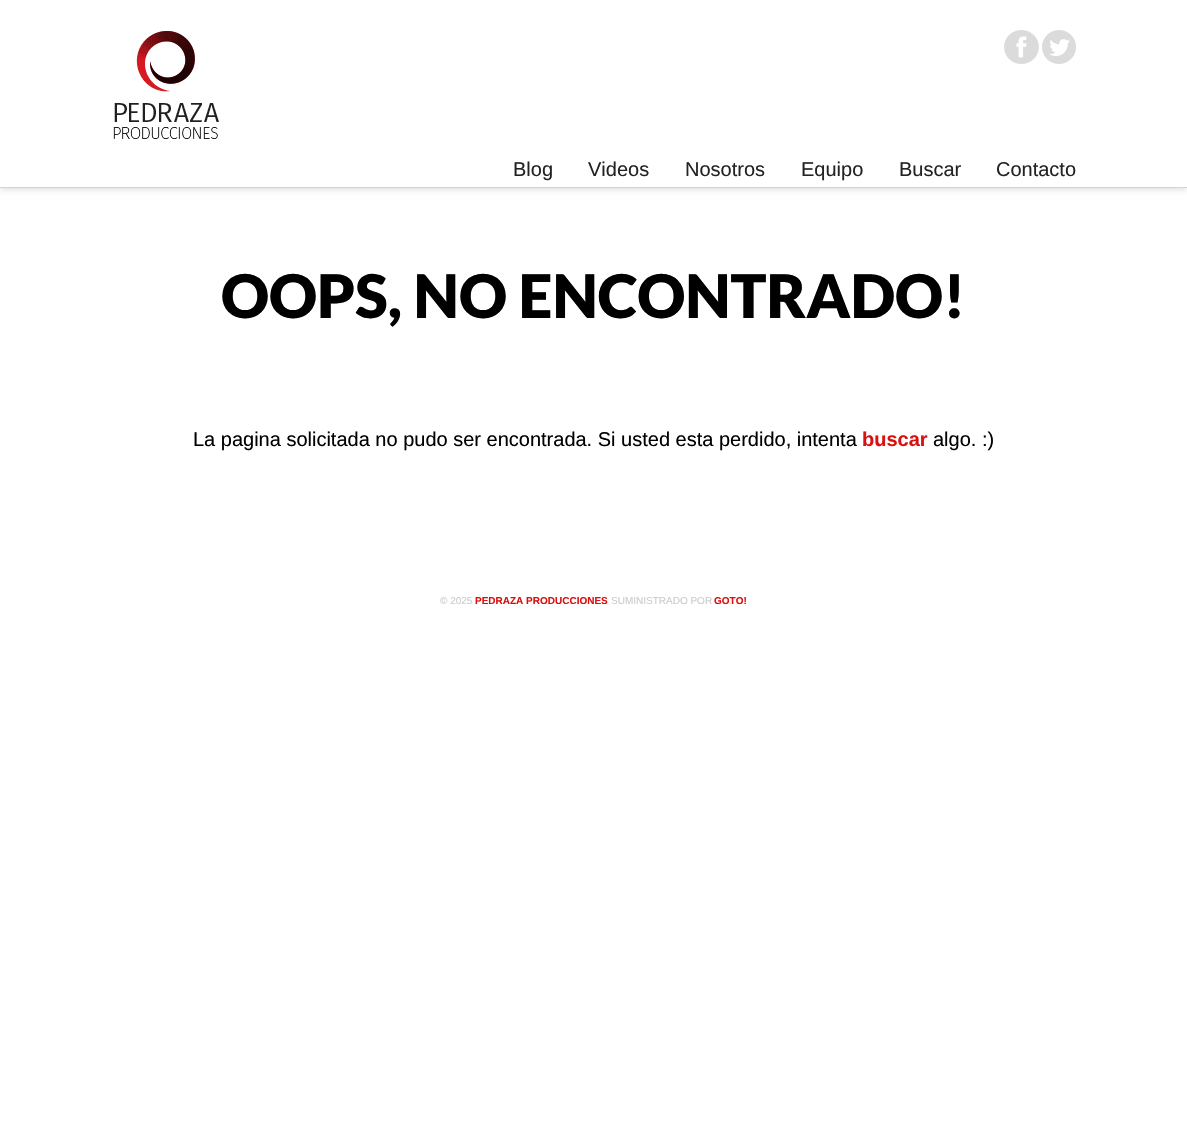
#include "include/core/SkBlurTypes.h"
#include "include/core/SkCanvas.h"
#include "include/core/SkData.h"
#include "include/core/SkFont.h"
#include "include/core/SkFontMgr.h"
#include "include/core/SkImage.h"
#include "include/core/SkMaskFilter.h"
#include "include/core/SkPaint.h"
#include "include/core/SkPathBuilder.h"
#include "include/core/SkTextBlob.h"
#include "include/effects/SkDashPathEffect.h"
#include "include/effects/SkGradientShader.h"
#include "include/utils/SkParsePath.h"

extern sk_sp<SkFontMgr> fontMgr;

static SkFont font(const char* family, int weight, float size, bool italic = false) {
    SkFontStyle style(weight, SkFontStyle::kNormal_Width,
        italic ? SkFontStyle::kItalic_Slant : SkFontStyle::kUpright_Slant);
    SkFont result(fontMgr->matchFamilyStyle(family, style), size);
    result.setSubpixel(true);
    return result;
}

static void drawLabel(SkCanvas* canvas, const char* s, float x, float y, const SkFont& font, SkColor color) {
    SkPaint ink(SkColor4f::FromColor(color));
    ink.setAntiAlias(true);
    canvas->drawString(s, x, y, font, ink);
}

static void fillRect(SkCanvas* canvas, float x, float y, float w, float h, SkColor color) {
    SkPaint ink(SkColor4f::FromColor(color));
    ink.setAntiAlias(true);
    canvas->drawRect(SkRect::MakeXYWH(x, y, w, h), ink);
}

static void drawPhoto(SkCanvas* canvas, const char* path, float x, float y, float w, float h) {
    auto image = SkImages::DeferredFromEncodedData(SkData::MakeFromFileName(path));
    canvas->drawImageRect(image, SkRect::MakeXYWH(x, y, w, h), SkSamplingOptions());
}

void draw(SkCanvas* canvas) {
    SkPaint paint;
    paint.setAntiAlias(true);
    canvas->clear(0xFFFFFFFF);
    canvas->save();
    canvas->clipRect(SkRect::MakeXYWH(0, 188, 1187, 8));
    paint.setColor(0xE6DEDEDE);
    paint.setMaskFilter(SkMaskFilter::MakeBlur(kNormal_SkBlurStyle, 3));
    canvas->drawRect(SkRect::MakeXYWH(0, 2, 1187, 188), paint);
    paint.setMaskFilter(nullptr);
    canvas->restore();
    fillRect(canvas, 0, 187, 1187, 1, 0xFFD4D3D3);
    drawPhoto(canvas, "assets/img1.png", 113, 31, 106, 108);
    drawPhoto(canvas, "assets/img2.png", 1004, 30, 35, 34);
    drawPhoto(canvas, "assets/img3.png", 1042, 30, 34, 34);
    SkFont font1 = font("Liberation Sans", 400, 20);
    drawLabel(canvas, "Blog", 513, 176, font1, 0xFF232323);
    drawLabel(canvas, "Videos", 588, 176, font1, 0xFF232323);
    drawLabel(canvas, "Nosotros", 685, 176, font1, 0xFF232323);
    drawLabel(canvas, "Equipo", 801, 176, font1, 0xFF232323);
    drawLabel(canvas, "Buscar", 899, 176, font1, 0xFF232323);
    drawLabel(canvas, "Contacto", 996, 176, font1, 0xFF232323);
    SkFont font2 = font("Lato", 900, 60);
    drawLabel(canvas, "OOPS, NO ENCONTRADO!", 221, 318, font2, 0xFF000000);
    drawLabel(canvas, "La pagina solicitada no pudo ser encontrada. Si usted esta perdido, intenta", 193, 446, font1, 0xFF000000);
    SkFont font3 = font("Liberation Sans", 700, 20);
    drawLabel(canvas, "buscar", 862, 446, font3, 0xFFDB1010);
    drawLabel(canvas, "algo. :)", 933, 446, font1, 0xFF000000);
    SkFont font4 = font("Liberation Sans", 400, 10);
    drawLabel(canvas, "© 2025", 440, 604, font4, 0xFFCCCCCC);
    SkFont font5 = font("Liberation Sans", 700, 10);
    drawLabel(canvas, "PEDRAZA PRODUCCIONES", 475, 604, font5, 0xFFDB1010);
    drawLabel(canvas, "SUMINISTRADO POR", 611, 604, font4, 0xFFCCCCCC);
    drawLabel(canvas, "GOTO!", 714, 604, font5, 0xFFDB1010);
}
